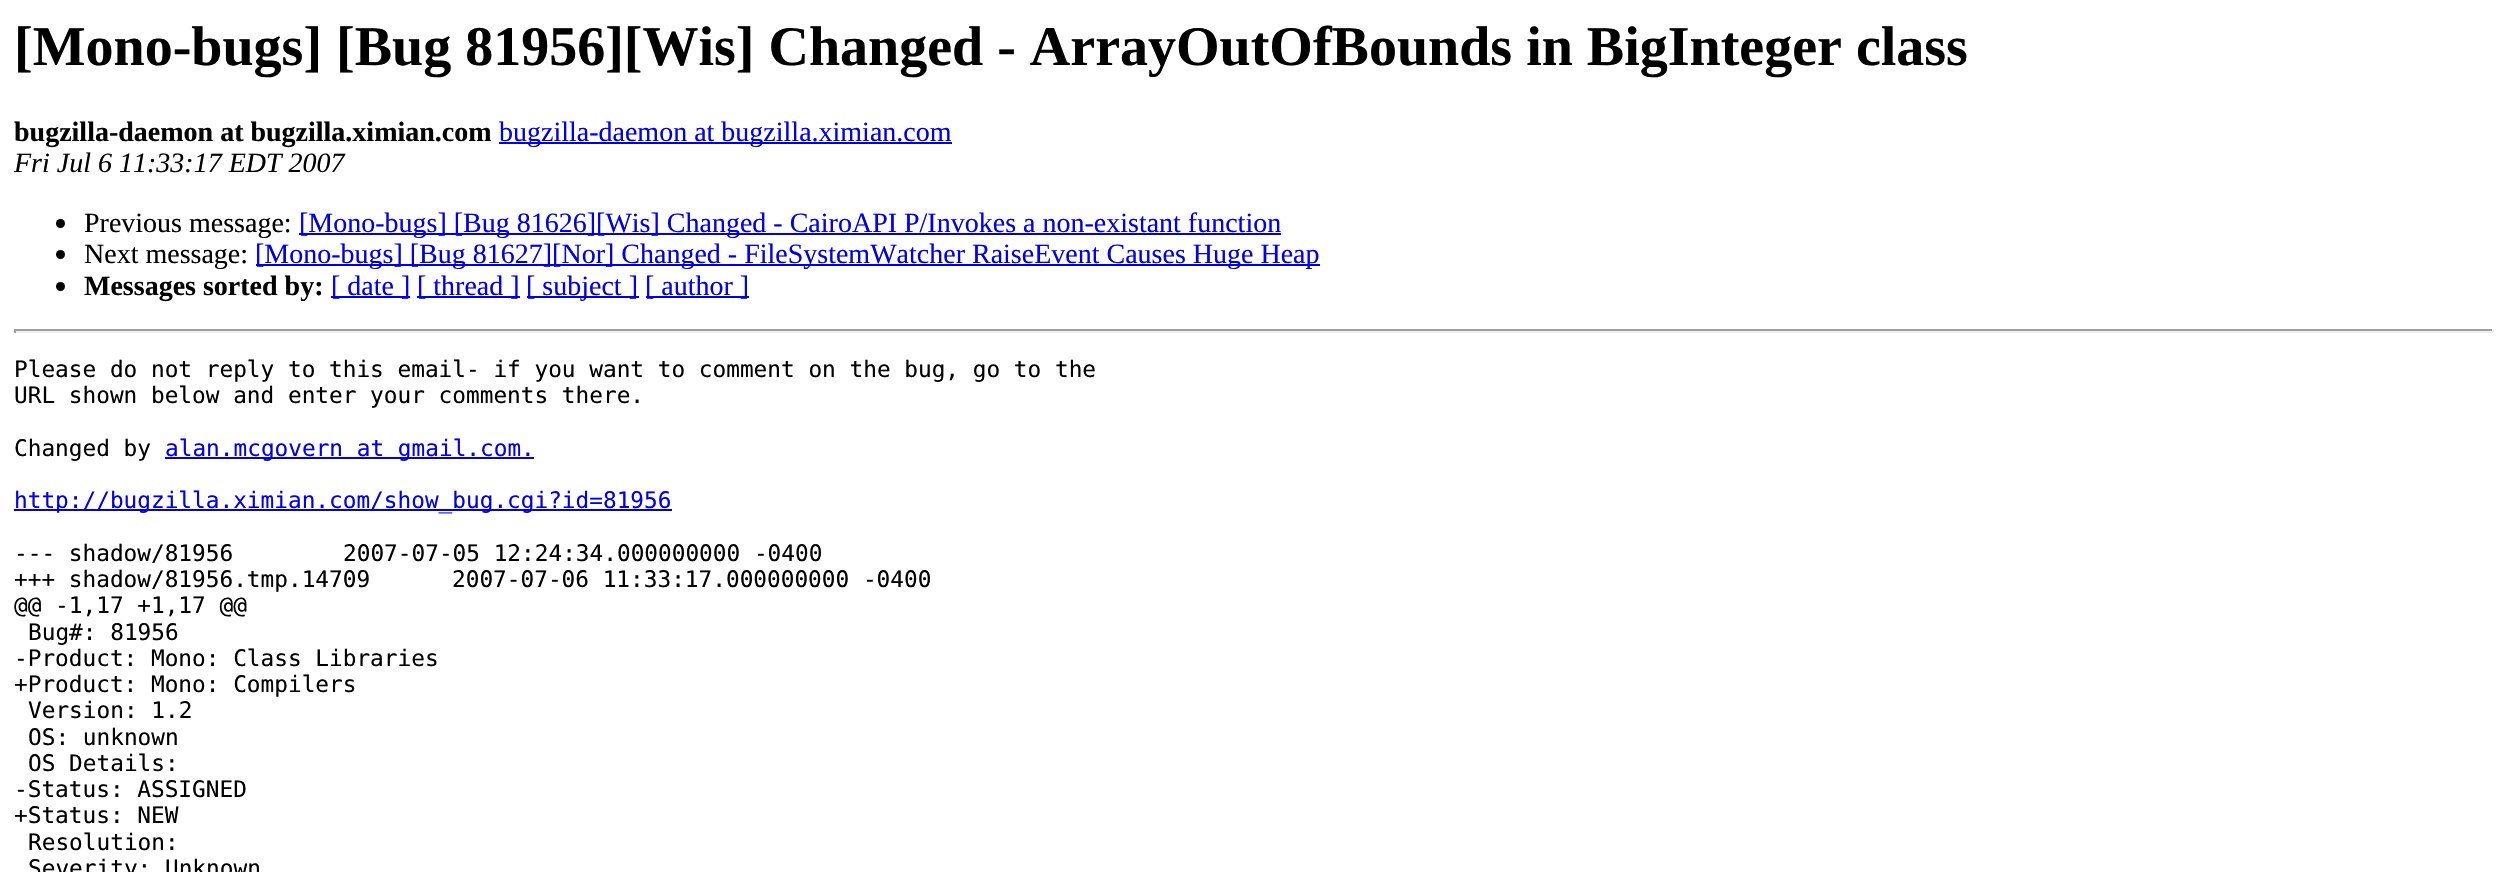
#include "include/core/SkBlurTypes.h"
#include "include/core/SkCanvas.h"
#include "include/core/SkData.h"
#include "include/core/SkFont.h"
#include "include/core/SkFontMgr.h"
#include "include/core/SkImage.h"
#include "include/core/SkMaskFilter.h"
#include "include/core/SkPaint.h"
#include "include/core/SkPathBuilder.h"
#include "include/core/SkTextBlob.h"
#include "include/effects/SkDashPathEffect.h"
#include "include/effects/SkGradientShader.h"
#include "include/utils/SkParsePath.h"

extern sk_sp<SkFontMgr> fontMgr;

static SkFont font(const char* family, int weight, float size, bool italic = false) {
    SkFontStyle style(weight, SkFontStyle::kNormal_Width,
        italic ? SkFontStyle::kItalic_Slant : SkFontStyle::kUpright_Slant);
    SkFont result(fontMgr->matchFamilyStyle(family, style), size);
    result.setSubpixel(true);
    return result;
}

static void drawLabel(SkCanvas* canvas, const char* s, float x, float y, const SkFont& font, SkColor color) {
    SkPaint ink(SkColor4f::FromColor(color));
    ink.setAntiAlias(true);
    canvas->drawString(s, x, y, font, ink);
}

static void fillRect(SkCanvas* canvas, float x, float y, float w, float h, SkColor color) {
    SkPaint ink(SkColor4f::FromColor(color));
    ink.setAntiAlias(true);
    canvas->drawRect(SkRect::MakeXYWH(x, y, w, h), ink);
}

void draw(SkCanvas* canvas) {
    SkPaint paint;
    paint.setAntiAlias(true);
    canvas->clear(0xFFFFFFFF);
    SkFont font1 = font("Liberation Serif", 700, 56);
    drawLabel(canvas, "[Mono-bugs] [Bug 81956][Wis] Changed - ArrayOutOfBounds in BigInteger class", 14, 65, font1, 0xFF000000);
    SkFont font2 = font("Liberation Serif", 700, 28);
    drawLabel(canvas, "bugzilla-daemon at bugzilla.ximian.com", 14, 141, font2, 0xFF000000);
    fillRect(canvas, 499, 142, 453, 2, 0xFF0000EE);
    SkFont font3 = font("Liberation Serif", 400, 28);
    drawLabel(canvas, "bugzilla-daemon at bugzilla.ximian.com", 499, 141, font3, 0xFF0000EE);
    SkFont font4 = font("Liberation Serif", 400, 28, true);
    drawLabel(canvas, "Fri Jul 6 11:33:17 EDT 2007", 14, 172, font4, 0xFF000000);
    paint.setColor(0xFF000000);
    canvas->drawCircle(60.5f, 223.5f, 4.5f, paint);
    drawLabel(canvas, "Previous message:", 84, 232, font3, 0xFF000000);
    fillRect(canvas, 299, 233, 982, 2, 0xFF0000EE);
    drawLabel(canvas, "[Mono-bugs] [Bug 81626][Wis] Changed - CairoAPI P/Invokes a non-existant function", 299, 232, font3, 0xFF0000EE);
    canvas->drawCircle(60.5f, 254.5f, 4.5f, paint);
    drawLabel(canvas, "Next message:", 84, 263, font3, 0xFF000000);
    fillRect(canvas, 256, 264, 1064, 2, 0xFF0000EE);
    drawLabel(canvas, "[Mono-bugs] [Bug 81627][Nor] Changed - FileSystemWatcher RaiseEvent Causes Huge Heap", 255, 263, font3, 0xFF0000EE);
    canvas->drawCircle(60.5f, 286.5f, 4.5f, paint);
    drawLabel(canvas, "Messages sorted by:", 84, 295, font2, 0xFF000000);
    fillRect(canvas, 331, 296, 79, 2, 0xFF0000EE);
    drawLabel(canvas, "[ date ]", 331, 295, font3, 0xFF0000EE);
    fillRect(canvas, 417, 296, 103, 2, 0xFF0000EE);
    drawLabel(canvas, "[ thread ]", 417, 295, font3, 0xFF0000EE);
    fillRect(canvas, 527, 296, 112, 2, 0xFF0000EE);
    drawLabel(canvas, "[ subject ]", 526, 295, font3, 0xFF0000EE);
    fillRect(canvas, 646, 296, 103, 2, 0xFF0000EE);
    drawLabel(canvas, "[ author ]", 645, 295, font3, 0xFF0000EE);
    fillRect(canvas, 14, 329, 2480, 2, 0xFF9F9F9F);
    fillRect(canvas, 2492, 329, 2, 4, 0xFFEEEEEE);
    fillRect(canvas, 14, 331, 2480, 2, 0xFFEEEEEE);
    fillRect(canvas, 14, 329, 2, 4, 0xFF9F9F9F);
    SkFont font5 = font("DejaVu Sans Mono", 400, 22.75f);
    drawLabel(canvas, "Please do not reply to this email- if you want to comment on the bug, go to the", 14, 377, font5, 0xFF000000);
    drawLabel(canvas, "URL shown below and enter your comments there.", 14, 403, font5, 0xFF000000);
    drawLabel(canvas, "Changed by", 14, 456, font5, 0xFF000000);
    fillRect(canvas, 165, 457, 369, 2, 0xFF0000EE);
    drawLabel(canvas, "alan.mcgovern at gmail.com.", 165, 456, font5, 0xFF0000EE);
    fillRect(canvas, 14, 509, 658, 2, 0xFF0000EE);
    drawLabel(canvas, "http://bugzilla.ximian.com/show_bug.cgi?id=81956", 14, 508, font5, 0xFF0000EE);
    drawLabel(canvas, "--- shadow/81956", 14, 561, font5, 0xFF000000);
    drawLabel(canvas, "2007-07-05 12:24:34.000000000 -0400", 343, 561, font5, 0xFF000000);
    drawLabel(canvas, "+++ shadow/81956.tmp.14709", 14, 587, font5, 0xFF000000);
    drawLabel(canvas, "2007-07-06 11:33:17.000000000 -0400", 452, 587, font5, 0xFF000000);
    drawLabel(canvas, "@@ -1,17 +1,17 @@", 14, 613, font5, 0xFF000000);
    drawLabel(canvas, "Bug#: 81956", 28, 640, font5, 0xFF000000);
    drawLabel(canvas, "-Product: Mono: Class Libraries", 14, 666, font5, 0xFF000000);
    drawLabel(canvas, "+Product: Mono: Compilers", 14, 692, font5, 0xFF000000);
    drawLabel(canvas, "Version: 1.2", 28, 718, font5, 0xFF000000);
    drawLabel(canvas, "OS: unknown", 28, 745, font5, 0xFF000000);
    drawLabel(canvas, "OS Details:", 28, 771, font5, 0xFF000000);
    drawLabel(canvas, "-Status: ASSIGNED", 14, 797, font5, 0xFF000000);
    drawLabel(canvas, "+Status: NEW", 14, 823, font5, 0xFF000000);
    drawLabel(canvas, "Resolution:", 28, 850, font5, 0xFF000000);
    drawLabel(canvas, "Severity: Unknown", 28, 876, font5, 0xFF000000);
}
